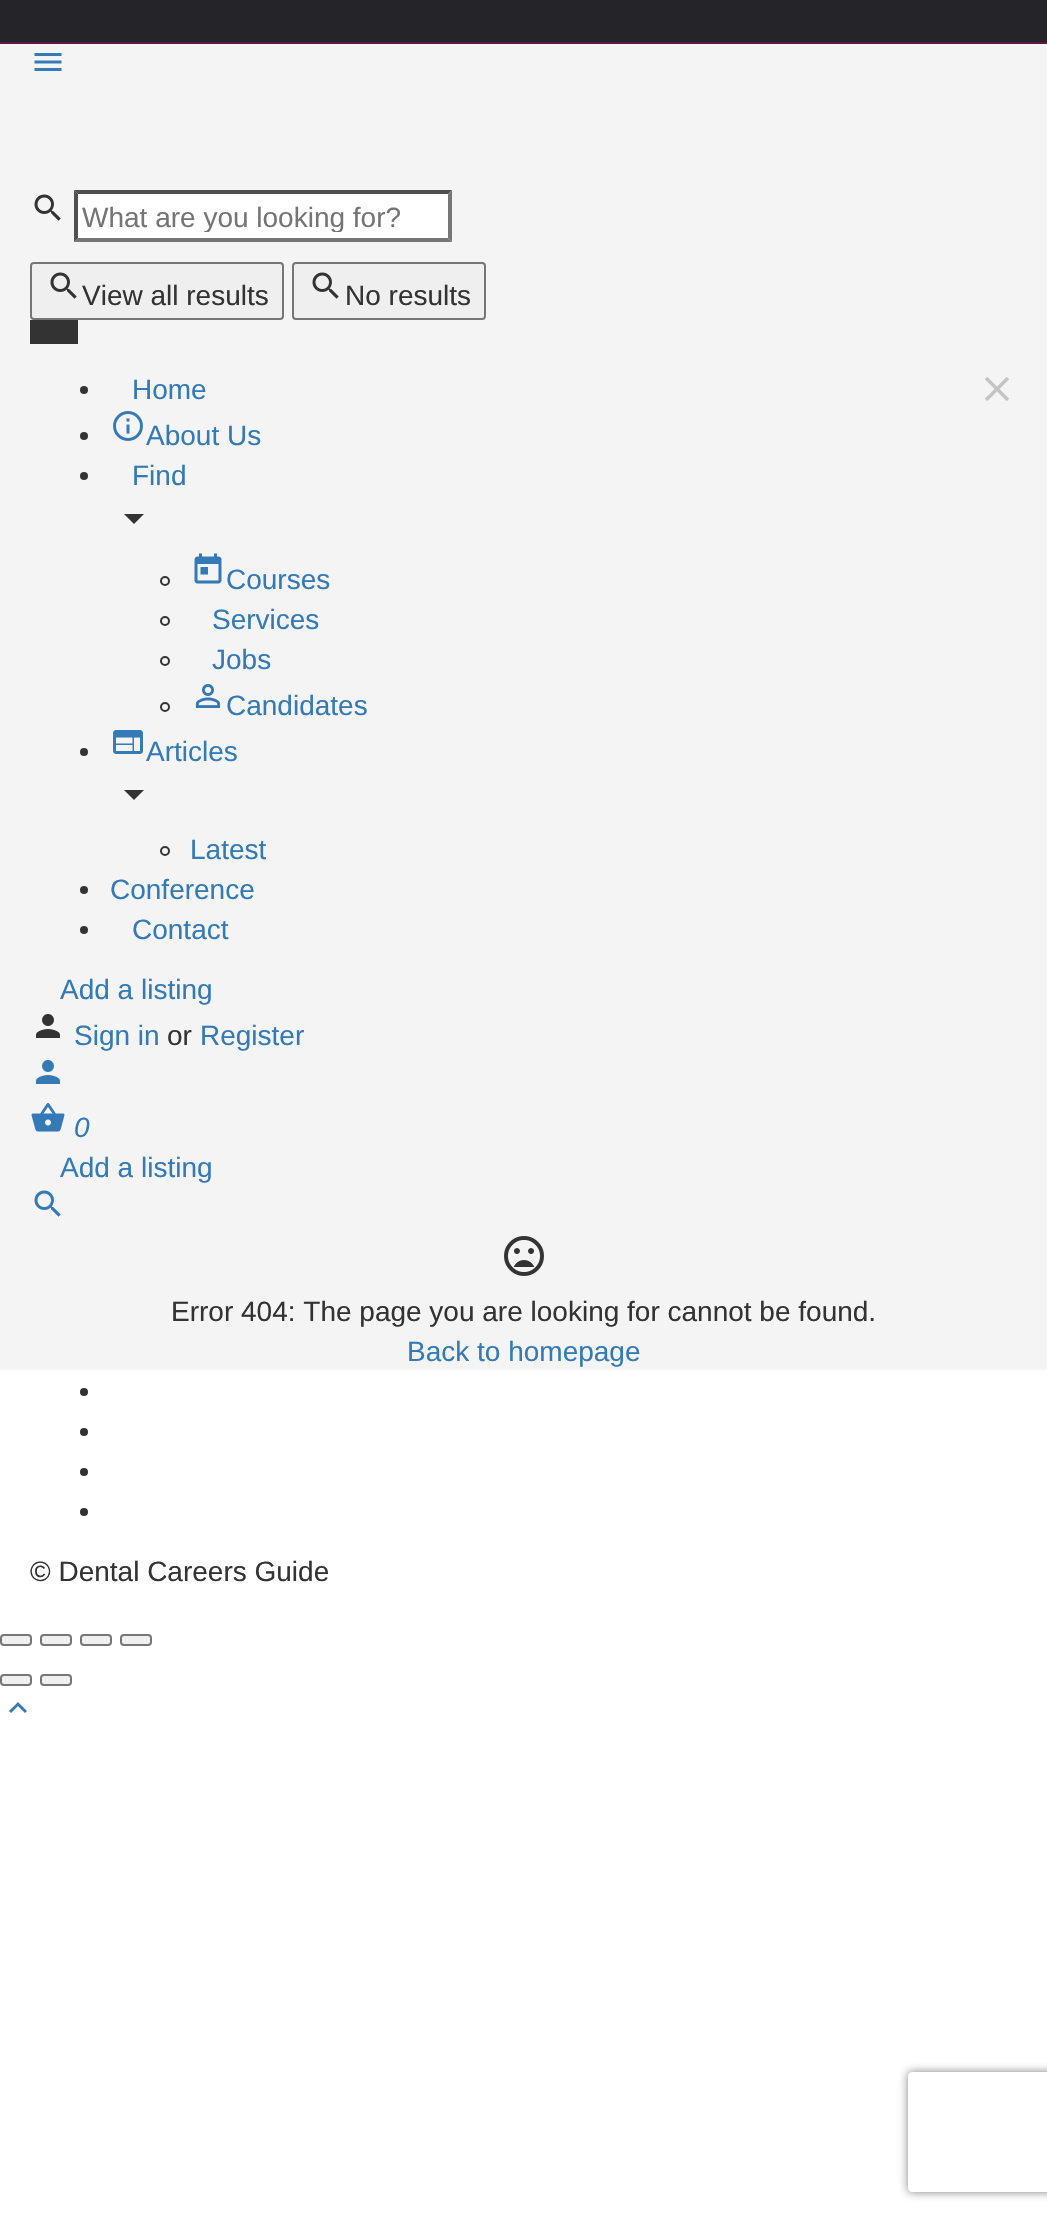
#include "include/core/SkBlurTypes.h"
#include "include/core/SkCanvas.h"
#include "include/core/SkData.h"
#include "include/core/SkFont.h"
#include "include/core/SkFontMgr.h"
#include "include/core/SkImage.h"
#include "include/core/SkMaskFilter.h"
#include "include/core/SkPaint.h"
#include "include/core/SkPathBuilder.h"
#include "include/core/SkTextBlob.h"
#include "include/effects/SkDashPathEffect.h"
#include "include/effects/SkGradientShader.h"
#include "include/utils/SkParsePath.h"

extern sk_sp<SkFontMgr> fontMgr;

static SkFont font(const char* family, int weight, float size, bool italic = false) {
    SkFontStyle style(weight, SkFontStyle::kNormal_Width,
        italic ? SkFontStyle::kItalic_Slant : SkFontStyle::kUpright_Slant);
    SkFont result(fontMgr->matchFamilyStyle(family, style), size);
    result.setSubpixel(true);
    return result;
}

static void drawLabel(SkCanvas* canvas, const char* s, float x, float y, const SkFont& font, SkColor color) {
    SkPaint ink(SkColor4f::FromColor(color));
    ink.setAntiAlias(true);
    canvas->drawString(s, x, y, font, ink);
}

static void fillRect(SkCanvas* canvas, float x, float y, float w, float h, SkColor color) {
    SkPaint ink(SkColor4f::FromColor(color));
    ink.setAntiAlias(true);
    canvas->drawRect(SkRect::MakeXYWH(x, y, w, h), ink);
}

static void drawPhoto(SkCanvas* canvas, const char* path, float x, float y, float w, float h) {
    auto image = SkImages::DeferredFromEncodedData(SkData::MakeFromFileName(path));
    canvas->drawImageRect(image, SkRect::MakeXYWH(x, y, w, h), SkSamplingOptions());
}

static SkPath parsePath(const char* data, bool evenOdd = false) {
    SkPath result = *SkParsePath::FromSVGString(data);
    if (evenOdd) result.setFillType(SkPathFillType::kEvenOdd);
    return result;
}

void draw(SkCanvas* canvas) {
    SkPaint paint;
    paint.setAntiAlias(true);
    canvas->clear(0xFFFFFFFF);
    fillRect(canvas, 0, 44, 1047, 1326, 0xFFF4F4F4);
    fillRect(canvas, 0, 0, 1047, 42, 0xFF242429);
    fillRect(canvas, 0, 42, 1047, 2, 0xFF631545);
    drawPhoto(canvas, "assets/img1.png", 34, 53, 28, 18);
    drawPhoto(canvas, "assets/img2.png", 34, 194, 27, 27);
    fillRect(canvas, 74, 190, 378, 52, 0xFFFFFFFF);
    paint.setColor(0xFF4F4F4F);
    canvas->drawPath(parsePath("M74 190H452L448 194H78Z"), paint);
    paint.setColor(0xFF767676);
    canvas->drawPath(parsePath("M452 190V242L448 238V194Z"), paint);
    canvas->drawPath(parsePath("M452 242H74L78 238H448Z"), paint);
    paint.setColor(0xFF4F4F4F);
    canvas->drawPath(parsePath("M74 242V190L78 194V238Z"), paint);
    canvas->save();
    canvas->clipRect(SkRect::MakeXYWH(82, 200, 354, 32));
    SkFont font1 = font("Liberation Sans", 400, 28);
    drawLabel(canvas, "What are you looking for?", 82, 227, font1, 0xFF757575);
    canvas->restore();
    paint.setColor(0xFFEFEFEF);
    canvas->drawRoundRect(SkRect::MakeXYWH(31, 263, 252, 56), 3, 3, paint);
    paint.setStroke(true);
    paint.setStrokeWidth(2);
    paint.setColor(0xFF767676);
    canvas->drawRoundRect(SkRect::MakeXYWH(31, 263, 252, 56), 3, 3, paint);
    drawPhoto(canvas, "assets/img3.png", 50, 272, 27, 27);
    drawLabel(canvas, "View all results", 82, 305, font1, 0xFF333333);
    paint.setStroke(false);
    paint.setColor(0xFFEFEFEF);
    canvas->drawRoundRect(SkRect::MakeXYWH(293, 263, 192, 56), 3, 3, paint);
    paint.setStroke(true);
    paint.setColor(0xFF767676);
    canvas->drawRoundRect(SkRect::MakeXYWH(293, 263, 192, 56), 3, 3, paint);
    drawPhoto(canvas, "assets/img3.png", 312, 272, 27, 27);
    drawLabel(canvas, "No results", 345, 305, font1, 0xFF333333);
    fillRect(canvas, 30, 320, 48, 24, 0xFF333333);
    paint.setStroke(false);
    paint.setColor(0xFF333333);
    canvas->drawCircle(84, 390, 4, paint);
    drawLabel(canvas, "Home", 132, 399, font1, 0xFF337AB7);
    canvas->drawCircle(84, 436, 4, paint);
    drawPhoto(canvas, "assets/img4.png", 113, 411, 30, 30);
    drawLabel(canvas, "About Us", 146, 445, font1, 0xFF337AB7);
    canvas->drawCircle(84, 476, 4, paint);
    drawLabel(canvas, "Find", 132, 485, font1, 0xFF337AB7);
    canvas->drawPath(parsePath("M124 514H144L134 524Z"), paint);
    paint.setStroke(true);
    canvas->drawCircle(165, 581, 4, paint);
    drawPhoto(canvas, "assets/img5.png", 194, 553, 28, 31);
    drawLabel(canvas, "Courses", 226, 589, font1, 0xFF337AB7);
    canvas->drawCircle(165, 621, 4, paint);
    drawLabel(canvas, "Services", 212, 629, font1, 0xFF337AB7);
    canvas->drawCircle(165, 661, 4, paint);
    drawLabel(canvas, "Jobs", 212, 669, font1, 0xFF337AB7);
    canvas->drawCircle(165, 707, 4, paint);
    drawPhoto(canvas, "assets/img6.png", 195, 684, 26, 24);
    drawLabel(canvas, "Candidates", 226, 715, font1, 0xFF337AB7);
    paint.setStroke(false);
    canvas->drawCircle(84, 752, 4, paint);
    drawPhoto(canvas, "assets/img7.png", 113, 730, 30, 24);
    drawLabel(canvas, "Articles", 146, 761, font1, 0xFF337AB7);
    canvas->drawPath(parsePath("M124 790H144L134 800Z"), paint);
    paint.setStroke(true);
    canvas->drawCircle(165, 851, 4, paint);
    drawLabel(canvas, "Latest", 190, 859, font1, 0xFF337AB7);
    paint.setStroke(false);
    canvas->drawCircle(84, 890, 4, paint);
    drawLabel(canvas, "Conference", 110, 899, font1, 0xFF337AB7);
    canvas->drawCircle(84, 930, 4, paint);
    drawLabel(canvas, "Contact", 132, 939, font1, 0xFF337AB7);
    drawPhoto(canvas, "assets/img8.png", 985, 377, 24, 24);
    drawLabel(canvas, "Add a listing", 60, 999, font1, 0xFF337AB7);
    drawPhoto(canvas, "assets/img9.png", 35, 1014, 26, 24);
    drawLabel(canvas, "Sign in", 74, 1045, font1, 0xFF337AB7);
    drawLabel(canvas, "or", 167, 1045, font1, 0xFF333333);
    drawLabel(canvas, "Register", 200, 1045, font1, 0xFF337AB7);
    drawPhoto(canvas, "assets/img10.png", 35, 1060, 26, 24);
    drawPhoto(canvas, "assets/img11.png", 31, 1103, 34, 29);
    SkFont font2 = font("Liberation Sans", 400, 28, true);
    drawLabel(canvas, "0", 74, 1137, font2, 0xFF337AB7);
    drawLabel(canvas, "Add a listing", 60, 1177, font1, 0xFF337AB7);
    drawPhoto(canvas, "assets/img12.png", 34, 1190, 27, 27);
    drawPhoto(canvas, "assets/img13.png", 504, 1236, 40, 40);
    drawLabel(canvas, "Error 404: The page you are looking for cannot be found.", 171, 1321, font1, 0xFF333333);
    drawLabel(canvas, "Back to homepage", 407, 1361, font1, 0xFF337AB7);
    canvas->drawCircle(84, 1392, 4, paint);
    canvas->drawCircle(84, 1432, 4, paint);
    canvas->drawCircle(84, 1472, 4, paint);
    canvas->drawCircle(84, 1512, 4, paint);
    drawLabel(canvas, "© Dental Careers Guide", 30, 1581, font1, 0xFF333333);
    paint.setColor(0xFFEFEFEF);
    canvas->drawRoundRect(SkRect::MakeXYWH(1, 1635, 30, 10), 3, 3, paint);
    paint.setStroke(true);
    paint.setColor(0xFF767676);
    canvas->drawRoundRect(SkRect::MakeXYWH(1, 1635, 30, 10), 3, 3, paint);
    paint.setStroke(false);
    paint.setColor(0xFFEFEFEF);
    canvas->drawRoundRect(SkRect::MakeXYWH(41, 1635, 30, 10), 3, 3, paint);
    paint.setStroke(true);
    paint.setColor(0xFF767676);
    canvas->drawRoundRect(SkRect::MakeXYWH(41, 1635, 30, 10), 3, 3, paint);
    paint.setStroke(false);
    paint.setColor(0xFFEFEFEF);
    canvas->drawRoundRect(SkRect::MakeXYWH(81, 1635, 30, 10), 3, 3, paint);
    paint.setStroke(true);
    paint.setColor(0xFF767676);
    canvas->drawRoundRect(SkRect::MakeXYWH(81, 1635, 30, 10), 3, 3, paint);
    paint.setStroke(false);
    paint.setColor(0xFFEFEFEF);
    canvas->drawRoundRect(SkRect::MakeXYWH(121, 1635, 30, 10), 3, 3, paint);
    paint.setStroke(true);
    paint.setColor(0xFF767676);
    canvas->drawRoundRect(SkRect::MakeXYWH(121, 1635, 30, 10), 3, 3, paint);
    paint.setStroke(false);
    paint.setColor(0xFFEFEFEF);
    canvas->drawRoundRect(SkRect::MakeXYWH(1, 1675, 30, 10), 3, 3, paint);
    paint.setStroke(true);
    paint.setColor(0xFF767676);
    canvas->drawRoundRect(SkRect::MakeXYWH(1, 1675, 30, 10), 3, 3, paint);
    paint.setStroke(false);
    paint.setColor(0xFFEFEFEF);
    canvas->drawRoundRect(SkRect::MakeXYWH(41, 1675, 30, 10), 3, 3, paint);
    paint.setStroke(true);
    paint.setColor(0xFF767676);
    canvas->drawRoundRect(SkRect::MakeXYWH(41, 1675, 30, 10), 3, 3, paint);
    paint.setStroke(false);
    paint.setColor(0xFF337AB7);
    canvas->drawPath(parsePath("M11 1713L9 1711L18 1702L27 1711L25 1713L18 1706Z"), paint);
    canvas->save();
    canvas->clipPath(parsePath("M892 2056H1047V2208H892ZM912 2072H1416C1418 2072 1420 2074 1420 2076V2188C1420 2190 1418 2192 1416 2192H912C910 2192 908 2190 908 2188V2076C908 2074 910 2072 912 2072Z", true), true);
    paint.setColor(0xFF808080);
    paint.setMaskFilter(SkMaskFilter::MakeBlur(kNormal_SkBlurStyle, 5));
    canvas->drawRoundRect(SkRect::MakeXYWH(908, 2072, 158, 120), 4, 4, paint);
    paint.setMaskFilter(nullptr);
    canvas->restore();
}
